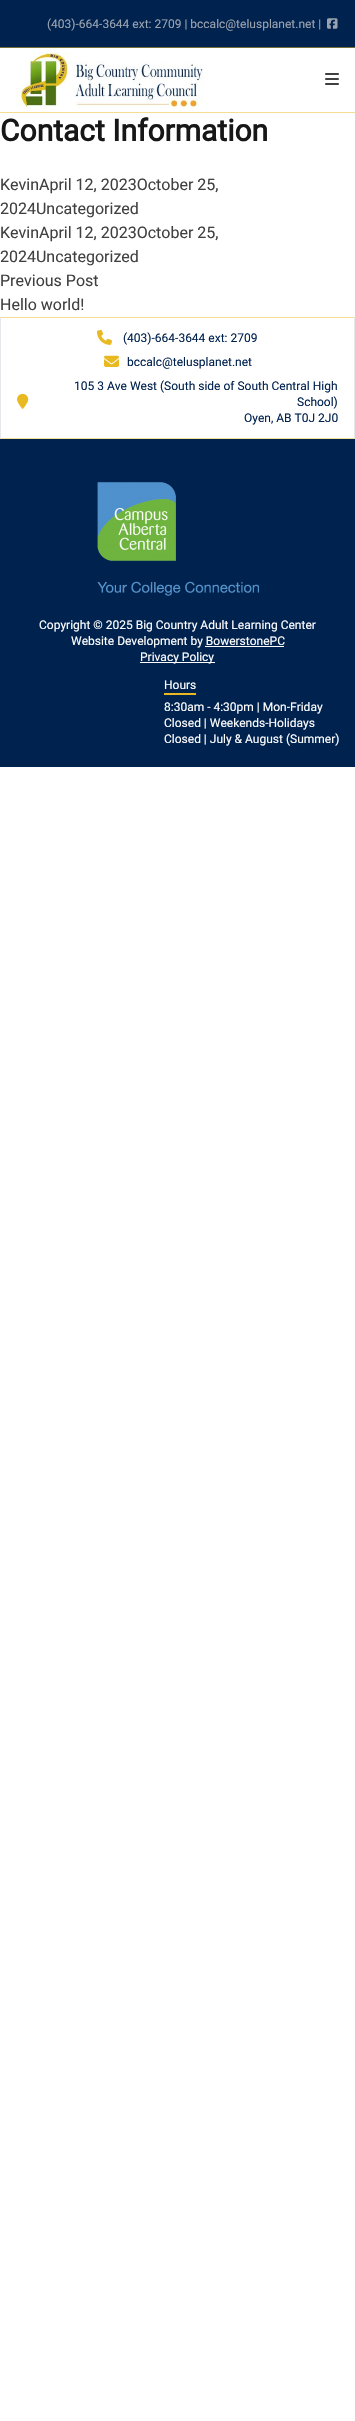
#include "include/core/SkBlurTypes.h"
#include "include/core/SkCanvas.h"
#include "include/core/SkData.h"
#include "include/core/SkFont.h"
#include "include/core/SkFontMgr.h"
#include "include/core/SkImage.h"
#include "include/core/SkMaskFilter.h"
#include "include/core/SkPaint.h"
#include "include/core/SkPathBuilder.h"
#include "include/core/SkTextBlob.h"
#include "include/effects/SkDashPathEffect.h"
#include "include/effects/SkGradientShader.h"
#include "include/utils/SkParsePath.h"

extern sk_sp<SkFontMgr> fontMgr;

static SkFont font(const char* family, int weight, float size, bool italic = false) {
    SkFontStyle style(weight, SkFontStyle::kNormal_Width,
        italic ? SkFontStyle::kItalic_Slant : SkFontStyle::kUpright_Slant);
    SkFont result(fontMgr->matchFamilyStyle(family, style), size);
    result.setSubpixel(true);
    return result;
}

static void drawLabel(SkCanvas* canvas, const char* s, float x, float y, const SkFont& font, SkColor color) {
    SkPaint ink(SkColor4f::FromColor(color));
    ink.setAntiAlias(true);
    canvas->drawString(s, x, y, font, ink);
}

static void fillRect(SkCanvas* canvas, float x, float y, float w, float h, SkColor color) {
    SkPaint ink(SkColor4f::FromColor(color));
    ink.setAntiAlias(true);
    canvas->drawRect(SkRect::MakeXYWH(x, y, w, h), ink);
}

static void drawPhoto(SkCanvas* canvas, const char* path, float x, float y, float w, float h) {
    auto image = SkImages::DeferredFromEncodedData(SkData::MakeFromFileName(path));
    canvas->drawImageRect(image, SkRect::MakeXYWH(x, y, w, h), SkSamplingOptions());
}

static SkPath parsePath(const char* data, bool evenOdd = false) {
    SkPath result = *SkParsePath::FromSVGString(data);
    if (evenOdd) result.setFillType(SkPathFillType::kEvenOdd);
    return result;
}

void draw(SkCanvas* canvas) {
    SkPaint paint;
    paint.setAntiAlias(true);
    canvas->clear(0xFFFFFFFF);
    fillRect(canvas, 0, 0, 355, 47, 0xFF00224F);
    fillRect(canvas, 0, 47, 355, 1, 0xFF746E38);
    SkFont font1 = font("Roboto", 400, 12);
    drawLabel(canvas, "(403)-664-3644 ext: 2709 | bccalc@telusplanet.net |", 47, 28, font1, 0xFF9CA3AF);
    drawPhoto(canvas, "assets/img1.png", 327, 18, 11, 11);
    fillRect(canvas, 0, 112, 355, 1, 0xFFF4DC90);
    drawPhoto(canvas, "assets/img2.png", 16, 52, 188, 56);
    drawPhoto(canvas, "assets/img3.png", 325, 73, 14, 12);
    SkFont font2 = font("Roboto", 700, 30);
    drawLabel(canvas, "Contact Information", 0, 141, font2, 0xFF171717);
    SkFont font3 = font("Roboto", 400, 16);
    drawLabel(canvas, "KevinApril 12, 2023October 25,", 0, 190, font3, 0xFF404040);
    drawLabel(canvas, "2024Uncategorized", 0, 214, font3, 0xFF404040);
    drawLabel(canvas, "KevinApril 12, 2023October 25,", 0, 238, font3, 0xFF404040);
    drawLabel(canvas, "2024Uncategorized", 0, 262, font3, 0xFF404040);
    drawLabel(canvas, "Previous Post", 0, 286, font3, 0xFF404040);
    drawLabel(canvas, "Hello world!", 0, 310, font3, 0xFF404040);
    paint.setColor(0xFFF4DC90);
    canvas->drawPath(parsePath("M0 317H355L354 318H1Z"), paint);
    paint.setColor(0xFFE5E7EB);
    canvas->drawPath(parsePath("M355 317V439L354 438V318Z"), paint);
    paint.setColor(0x80E8B921);
    canvas->drawPath(parsePath("M355 439H0L1 438H354Z"), paint);
    paint.setColor(0xFFE5E7EB);
    canvas->drawPath(parsePath("M0 439V317L1 318V438Z"), paint);
    drawPhoto(canvas, "assets/img4.png", 97, 329, 15, 16);
    drawLabel(canvas, "(403)-664-3644 ext: 2709", 123, 342, font1, 0xFF00224F);
    drawPhoto(canvas, "assets/img5.png", 104, 355, 15, 12);
    drawLabel(canvas, "bccalc@telusplanet.net", 127, 366, font1, 0xFF00224F);
    drawPhoto(canvas, "assets/img6.png", 17, 393, 12, 16);
    drawLabel(canvas, "105 3 Ave West (South side of South Central High", 74, 390, font1, 0xFF00224F);
    drawLabel(canvas, "School)", 297, 406, font1, 0xFF00224F);
    drawLabel(canvas, "Oyen, AB T0J 2J0", 244, 422, font1, 0xFF00224F);
    fillRect(canvas, 0, 439, 355, 328, 0xFF00224F);
    drawPhoto(canvas, "assets/img7.png", 97, 482, 162, 114);
    drawLabel(canvas, "Copyright © 2025 Big Country Adult Learning Center", 39, 629, font1, 0xFFFFFFFF);
    drawLabel(canvas, "Website Development by BowerstonePC", 71, 645, font1, 0xFFFFFFFF);
    fillRect(canvas, 205, 646, 79, 1, 0xFFFFFFFF);
    fillRect(canvas, 140, 662, 75, 1, 0xFFFFFFFF);
    drawLabel(canvas, "Privacy Policy", 140, 661, font1, 0xFFFFFFFF);
    fillRect(canvas, 164, 693, 32, 2, 0xFFE8B921);
    drawLabel(canvas, "Hours", 164, 689, font1, 0xFFFFFFFF);
    drawLabel(canvas, "8:30am - 4:30pm | Mon-Friday", 164, 711, font1, 0xFFFFFFFF);
    drawLabel(canvas, "Closed | Weekends-Holidays", 164, 727, font1, 0xFFFFFFFF);
    drawLabel(canvas, "Closed | July & August (Summer)", 164, 743, font1, 0xFFFFFFFF);
}
